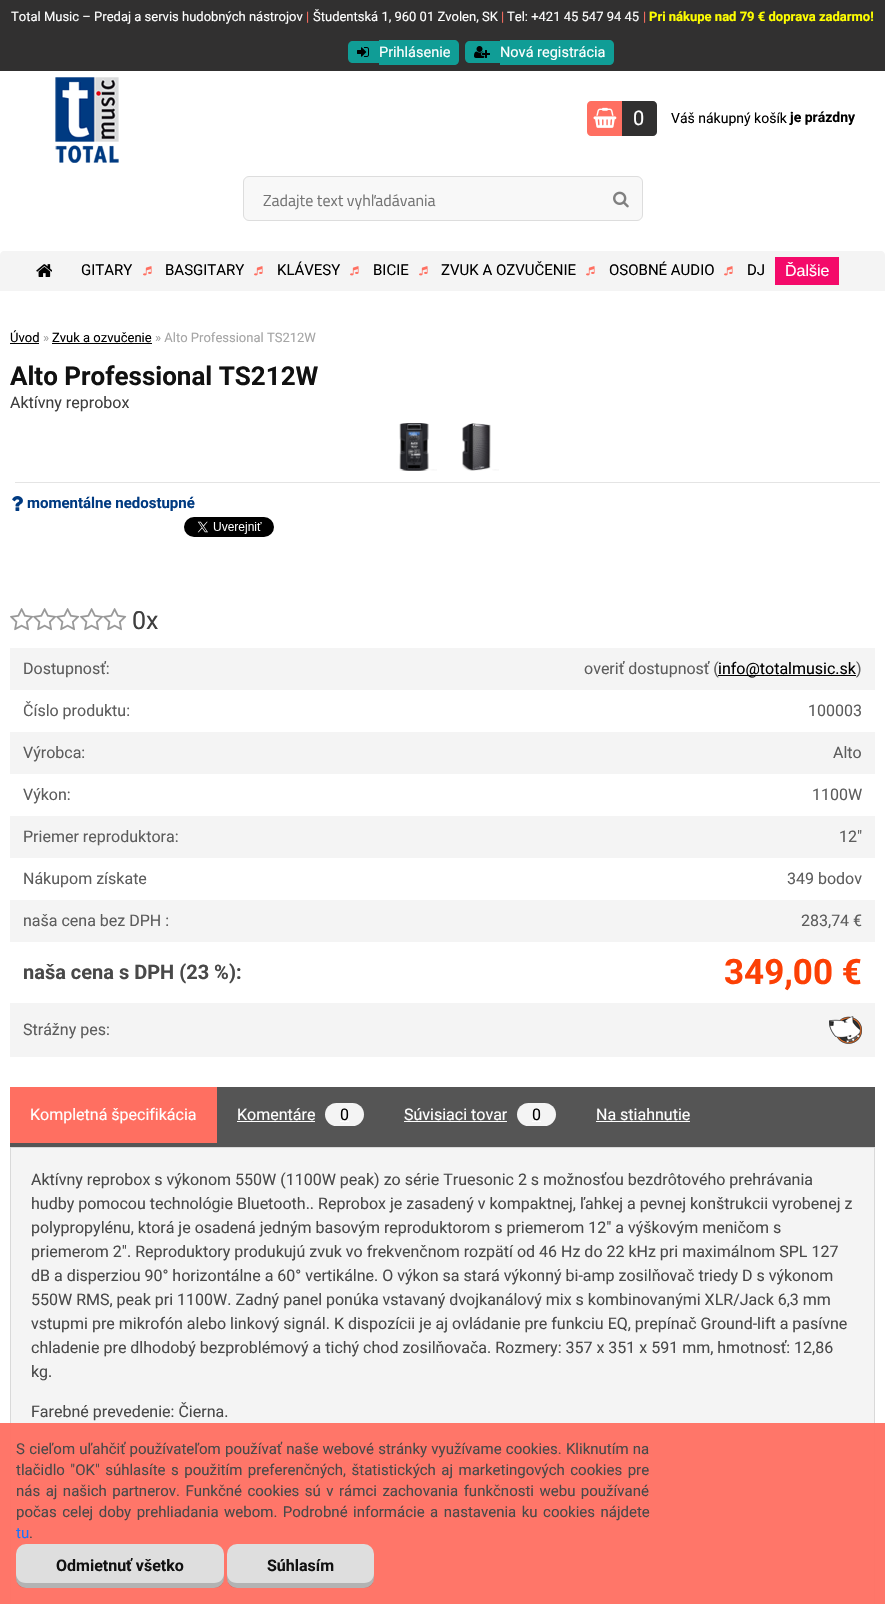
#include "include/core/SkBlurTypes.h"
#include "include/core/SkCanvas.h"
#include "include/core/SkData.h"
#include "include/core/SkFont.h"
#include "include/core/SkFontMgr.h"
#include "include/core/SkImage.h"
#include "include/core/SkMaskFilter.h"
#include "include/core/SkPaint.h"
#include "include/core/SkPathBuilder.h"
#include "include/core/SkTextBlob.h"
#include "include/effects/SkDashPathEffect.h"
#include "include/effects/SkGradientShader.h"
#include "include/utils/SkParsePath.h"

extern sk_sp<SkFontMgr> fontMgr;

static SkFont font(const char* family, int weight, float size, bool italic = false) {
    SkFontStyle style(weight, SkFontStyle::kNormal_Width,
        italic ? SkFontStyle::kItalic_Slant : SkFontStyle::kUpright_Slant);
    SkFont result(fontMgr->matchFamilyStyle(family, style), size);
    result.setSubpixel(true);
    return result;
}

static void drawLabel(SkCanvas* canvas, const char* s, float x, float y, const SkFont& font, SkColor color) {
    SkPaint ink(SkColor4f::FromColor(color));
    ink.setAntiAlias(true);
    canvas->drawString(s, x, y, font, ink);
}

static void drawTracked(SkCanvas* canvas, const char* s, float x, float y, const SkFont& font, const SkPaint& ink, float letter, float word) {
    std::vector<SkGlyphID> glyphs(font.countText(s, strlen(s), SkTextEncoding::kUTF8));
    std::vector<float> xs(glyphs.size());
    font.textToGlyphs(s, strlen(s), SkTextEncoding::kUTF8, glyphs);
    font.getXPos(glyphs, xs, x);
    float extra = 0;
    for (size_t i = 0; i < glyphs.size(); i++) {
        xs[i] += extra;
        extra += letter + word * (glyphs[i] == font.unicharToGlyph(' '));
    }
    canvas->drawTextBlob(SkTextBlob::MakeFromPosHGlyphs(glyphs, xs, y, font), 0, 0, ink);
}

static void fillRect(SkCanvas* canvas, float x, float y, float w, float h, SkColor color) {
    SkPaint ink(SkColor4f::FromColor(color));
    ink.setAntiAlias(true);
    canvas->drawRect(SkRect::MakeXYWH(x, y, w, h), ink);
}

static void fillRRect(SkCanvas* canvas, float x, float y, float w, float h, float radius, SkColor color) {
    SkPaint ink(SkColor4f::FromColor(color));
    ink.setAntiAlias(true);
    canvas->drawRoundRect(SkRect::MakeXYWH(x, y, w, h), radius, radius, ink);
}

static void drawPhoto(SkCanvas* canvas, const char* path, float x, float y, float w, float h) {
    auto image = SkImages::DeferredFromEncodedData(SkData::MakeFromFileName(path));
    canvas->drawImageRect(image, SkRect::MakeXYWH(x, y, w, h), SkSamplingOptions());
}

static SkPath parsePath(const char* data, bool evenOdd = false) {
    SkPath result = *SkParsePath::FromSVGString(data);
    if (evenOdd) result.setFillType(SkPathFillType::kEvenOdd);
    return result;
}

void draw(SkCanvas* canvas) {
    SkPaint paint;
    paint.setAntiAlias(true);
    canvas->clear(0xFFFFFFFF);
    fillRect(canvas, 0, 0, 885, 71, 0xFF313030);
    SkFont font1 = font("Roboto", 400, 13);
    drawLabel(canvas, "Total Music – Predaj a servis hudobných nástrojov", 11, 21, font1, 0xFFFFFFFF);
    drawLabel(canvas, "|", 306, 21, font1, 0xFFFF6F61);
    drawLabel(canvas, "Študentská 1, 960 01 Zvolen, SK", 313, 21, font1, 0xFFFFFFFF);
    drawLabel(canvas, "|", 501, 21, font1, 0xFFFF6F61);
    drawLabel(canvas, "Tel: +421 45 547 94 45", 507, 21, font1, 0xFFFFFFFF);
    drawLabel(canvas, "|", 643, 21, font1, 0xFFFF6F61);
    SkFont font2 = font("Roboto", 700, 13);
    drawLabel(canvas, "Pri nákupe nad 79 € doprava zadarmo!", 649, 21, font2, 0xFFFFFF00);
    paint.setColor(0xFF109D96);
    canvas->drawPath(parsePath("M353 41H379V63H353C350 63 348 61 348 58V46C348 43 350 41 353 41Z"), paint);
    drawPhoto(canvas, "assets/img1.png", 357, 47, 12, 10);
    canvas->drawPath(parsePath("M379 40H454C457 40 459 42 459 45V60C459 63 457 65 454 65H379Z"), paint);
    SkFont font3 = font("Roboto", 400, 14.5f);
    drawLabel(canvas, "Prihlásenie", 379, 57, font3, 0xFFFFFFFF);
    canvas->drawPath(parsePath("M470 41H500V63H470C467 63 465 61 465 58V46C465 43 467 41 470 41Z"), paint);
    drawPhoto(canvas, "assets/img2.png", 474, 46, 16, 12);
    canvas->drawPath(parsePath("M500 40H609C612 40 614 42 614 45V60C614 63 612 65 609 65H500Z"), paint);
    drawLabel(canvas, "Nová registrácia", 500, 57, font3, 0xFFFFFFFF);
    drawPhoto(canvas, "assets/img3.png", 55, 77, 64, 86);
    paint.setColor(0xFFFF6F61);
    canvas->drawPath(parsePath("M591 101H622V136H591C589 136 587 134 587 132V105C587 103 589 101 591 101Z"), paint);
    drawPhoto(canvas, "assets/img4.png", 593, 107, 24, 21);
    paint.setColor(0xFF313030);
    canvas->drawPath(parsePath("M622 101H653C655 101 657 103 657 105V132C657 134 655 136 653 136H622Z"), paint);
    SkFont font4 = font("Roboto", 400, 20);
    drawLabel(canvas, "0", 633, 125, font4, 0xFFFFFFFF);
    SkFont font5 = font("Roboto", 400, 14);
    drawLabel(canvas, "Váš nákupný košík", 671, 123, font5, 0xFF000000);
    SkFont font6 = font("Roboto", 700, 14);
    drawLabel(canvas, "je prázdny", 790, 122, font6, 0xFF000000);
    paint.setColor(0xFFF8F8F8);
    canvas->drawRoundRect(SkRect::MakeXYWH(243.5f, 176.5f, 399, 44), 5.5f, 5.5f, paint);
    paint.setStroke(true);
    paint.setStrokeWidth(1);
    paint.setColor(0xFFDDDDDD);
    canvas->drawRoundRect(SkRect::MakeXYWH(243.5f, 176.5f, 399, 44), 5.5f, 5.5f, paint);
    SkFont font7 = font("Titillium Web", 400, 16);
    drawLabel(canvas, "Zadajte text vyhľadávania", 263, 206, font7, 0xFF757575);
    drawPhoto(canvas, "assets/img5.png", 613, 191, 16, 17);
    paint.setStroke(false);
    paint.setColor(0xFFF4F4F4);
    canvas->drawPath(parsePath("M4 251H881C883 251 885 253 885 255V291H0V255C0 253 2 251 4 251Z"), paint);
    drawPhoto(canvas, "assets/img6.png", 36, 264, 16, 13);
    SkFont font8 = font("Roboto", 400, 15);
    drawLabel(canvas, "GITARY", 81, 275, font8, 0xFF000000);
    drawPhoto(canvas, "assets/img7.png", 143, 266, 9, 10);
    drawLabel(canvas, "BASGITARY", 165, 275, font8, 0xFF000000);
    drawPhoto(canvas, "assets/img7.png", 254, 266, 9, 10);
    drawLabel(canvas, "KLÁVESY", 277, 275, font8, 0xFF000000);
    drawPhoto(canvas, "assets/img7.png", 350, 266, 9, 10);
    drawLabel(canvas, "BICIE", 373, 275, font8, 0xFF000000);
    drawPhoto(canvas, "assets/img7.png", 419, 266, 9, 10);
    drawLabel(canvas, "ZVUK A OZVUČENIE", 441, 275, font8, 0xFF000000);
    drawPhoto(canvas, "assets/img7.png", 586, 266, 9, 10);
    drawLabel(canvas, "OSOBNÉ AUDIO", 609, 275, font8, 0xFF000000);
    drawPhoto(canvas, "assets/img7.png", 724, 266, 9, 10);
    drawLabel(canvas, "DJ", 747, 275, font8, 0xFF000000);
    fillRect(canvas, 775, 257, 64, 28, 0xFFF40A6A);
    SkFont font9 = font("Liberation Sans", 400, 16);
    drawLabel(canvas, "Ďalšie", 785, 276, font9, 0xFFFFFFFF);
    drawLabel(canvas, "Úvod", 10, 342, font1, 0xFF000000);
    fillRect(canvas, 10, 343, 29, 1, 0xFF000000);
    drawLabel(canvas, "»", 43, 342, font1, 0xFFA5A5A5);
    drawLabel(canvas, "Zvuk a ozvučenie", 52, 342, font1, 0xFF000000);
    fillRect(canvas, 52, 343, 100, 1, 0xFF000000);
    drawLabel(canvas, "» Alto Professional TS212W", 155, 342, font1, 0xFFA5A5A5);
    SkFont font10 = font("Roboto", 700, 26);
    drawLabel(canvas, "Alto Professional TS212W", 10, 385, font10, 0xFF111111);
    SkFont font11 = font("Roboto", 400, 16);
    drawLabel(canvas, "Aktívny reprobox", 10, 408, font11, 0xFF3F3F3F);
    drawPhoto(canvas, "assets/img8.png", 399, 423, 38, 48);
    drawPhoto(canvas, "assets/img9.png", 462, 423, 37, 48);
    fillRect(canvas, 15, 482, 865, 1, 0xFFE4E4E4);
    drawPhoto(canvas, "assets/img10.png", 12, 496, 11, 15);
    SkFont font12 = font("Roboto", 700, 15);
    drawLabel(canvas, "momentálne nedostupné", 27, 508, font12, 0xFF003A81);
    drawPhoto(canvas, "assets/img11.png", 184, 517, 90, 20);
    drawPhoto(canvas, "assets/img12.png", 10, 608, 24, 23);
    drawPhoto(canvas, "assets/img13.png", 33, 608, 24, 23);
    drawPhoto(canvas, "assets/img13.png", 56, 608, 24, 23);
    drawPhoto(canvas, "assets/img12.png", 80, 608, 24, 23);
    drawPhoto(canvas, "assets/img13.png", 103, 608, 24, 23);
    SkFont font13 = font("Roboto", 400, 25);
    drawLabel(canvas, "0x", 132, 629, font13, 0xFF3F3F3F);
    fillRect(canvas, 10, 648, 865, 42, 0xFFF4F4F4);
    drawLabel(canvas, "Dostupnosť:", 23, 674, font11, 0xFF5D5D5D);
    drawLabel(canvas, "overiť dostupnosť (", 584, 674, font11, 0xFF5D5D5D);
    fillRect(canvas, 718, 675, 138, 1, 0xFF000000);
    drawLabel(canvas, "info@totalmusic.sk", 718, 674, font11, 0xFF000000);
    drawLabel(canvas, ")", 856, 674, font11, 0xFF5D5D5D);
    drawLabel(canvas, "Číslo produktu:", 23, 716, font11, 0xFF5D5D5D);
    drawLabel(canvas, "100003", 808, 716, font11, 0xFF5D5D5D);
    fillRect(canvas, 10, 732, 865, 42, 0xFFF4F4F4);
    drawLabel(canvas, "Výrobca:", 23, 758, font11, 0xFF5D5D5D);
    drawLabel(canvas, "Alto", 833, 758, font11, 0xFF5D5D5D);
    drawLabel(canvas, "Výkon:", 23, 800, font11, 0xFF5D5D5D);
    drawLabel(canvas, "1100W", 812, 800, font11, 0xFF5D5D5D);
    fillRect(canvas, 10, 816, 865, 42, 0xFFF4F4F4);
    drawLabel(canvas, "Priemer reproduktora:", 23, 842, font11, 0xFF5D5D5D);
    drawLabel(canvas, "12\"", 839, 842, font11, 0xFF5D5D5D);
    drawLabel(canvas, "Nákupom získate", 23, 884, font11, 0xFF5D5D5D);
    drawLabel(canvas, "349 bodov", 787, 884, font11, 0xFF5D5D5D);
    fillRect(canvas, 10, 900, 865, 42, 0xFFF4F4F4);
    drawLabel(canvas, "naša cena bez DPH :", 23, 926, font11, 0xFF5D5D5D);
    drawLabel(canvas, "283,74 €", 801, 926, font11, 0xFF5D5D5D);
    SkFont font14 = font("Roboto", 700, 20);
    drawLabel(canvas, "naša cena s DPH (23 %):", 23, 979, font14, 0xFF494949);
    SkFont font15 = font("Roboto", 700, 35);
    drawLabel(canvas, "349,00 €", 724, 984, font15, 0xFFFC4005);
    fillRect(canvas, 10, 1003, 865, 54, 0xFFF4F4F4);
    drawLabel(canvas, "Strážny pes:", 23, 1035, font11, 0xFF5D5D5D);
    drawPhoto(canvas, "assets/img14.png", 829, 1016, 33, 28);
    fillRect(canvas, 10, 1087, 865, 60, 0xFF555555);
    fillRect(canvas, 10, 1087, 207, 56, 0xFFFF6F61);
    drawLabel(canvas, "Kompletná špecifikácia", 30, 1120, font11, 0xFFFFFFFF);
    drawLabel(canvas, "Komentáre", 237, 1120, font11, 0xFFFFFFFF);
    fillRect(canvas, 237, 1121, 78, 1, 0xFFFFFFFF);
    fillRRect(canvas, 325, 1103, 39, 23, 11.5f, 0xFFF4F4F4);
    drawLabel(canvas, "0", 340, 1120, font11, 0xFF000000);
    fillRect(canvas, 340, 1121, 9, 1, 0xFFFFFFFF);
    drawLabel(canvas, "Súvisiaci tovar", 404, 1120, font11, 0xFFFFFFFF);
    fillRect(canvas, 404, 1121, 103, 1, 0xFFFFFFFF);
    fillRRect(canvas, 517, 1103, 39, 23, 11.5f, 0xFFF4F4F4);
    drawLabel(canvas, "0", 532, 1120, font11, 0xFF000000);
    fillRect(canvas, 532, 1121, 9, 1, 0xFFFFFFFF);
    drawLabel(canvas, "Na stiahnutie", 596, 1120, font11, 0xFFFFFFFF);
    fillRect(canvas, 596, 1121, 94, 1, 0xFFFFFFFF);
    canvas->drawRect(SkRect::MakeXYWH(10.5f, 1147.5f, 864, 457), paint);
    paint.setStroke(true);
    paint.setColor(0xFFD9D9D9);
    canvas->drawRect(SkRect::MakeXYWH(10.5f, 1147.5f, 864, 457), paint);
    drawLabel(canvas, "Aktívny reprobox s výkonom 550W (1100W peak) zo série Truesonic 2 s možnosťou bezdrôtového prehrávania", 31, 1185, font11, 0xFF494949);
    drawLabel(canvas, "hudby pomocou technológie Bluetooth.. Reprobox je zasadený v kompaktnej, ľahkej a pevnej konštrukcii vyrobenej z", 31, 1209, font11, 0xFF494949);
    drawLabel(canvas, "polypropylénu, ktorá je osadená jedným basovým reproduktorom s priemerom 12\" a výškovým meničom s", 31, 1233, font11, 0xFF494949);
    drawLabel(canvas, "priemerom 2\". Reproduktory produkujú zvuk vo frekvenčnom rozpätí od 46 Hz do 22 kHz pri maximálnom SPL 127", 31, 1257, font11, 0xFF494949);
    drawLabel(canvas, "dB a disperziou 90° horizontálne a 60° vertikálne. O výkon sa stará výkonný bi-amp zosilňovač triedy D s výkonom", 31, 1281, font11, 0xFF494949);
    drawLabel(canvas, "550W RMS, peak pri 1100W. Zadný panel ponúka vstavaný dvojkanálový mix s kombinovanými XLR/Jack 6,3 mm", 31, 1305, font11, 0xFF494949);
    drawLabel(canvas, "vstupmi pre mikrofón alebo linkový signál. K dispozícii je aj ovládanie pre funkciu EQ, prepínač Ground-lift a pasívne", 31, 1329, font11, 0xFF494949);
    drawLabel(canvas, "chladenie pre dlhodobý bezproblémový a tichý chod zosilňovača. Rozmery: 357 x 351 x 591 mm, hmotnosť: 12,86", 31, 1353, font11, 0xFF494949);
    drawLabel(canvas, "kg.", 31, 1377, font11, 0xFF494949);
    drawLabel(canvas, "Farebné prevedenie: Čierna.", 31, 1417, font11, 0xFF494949);
    fillRect(canvas, 0, 1423, 885, 181, 0xF2FF6F61);
    paint.setStroke(false);
    paint.setColor(0xFF494949);
    drawTracked(canvas, "S cieľom uľahčiť používateľom používať naše webové stránky využívame cookies. Kliknutím na", 16, 1454, font8, paint, 0, 0.5f);
    drawTracked(canvas, "tlačidlo \"OK\" súhlasíte s použitím preferenčných, štatistických aj marketingových cookies pre", 16, 1475, font8, paint, 0, 1.75f);
    drawTracked(canvas, "nás aj našich partnerov. Funkčné cookies sú v rámci zachovania funkčnosti webu používané", 16, 1496, font8, paint, 0, 1.75f);
    drawTracked(canvas, "počas celej doby prehliadania webom. Podrobné informácie a nastavenia ku cookies nájdete", 16, 1517, font8, paint, 0, 1.75f);
    drawLabel(canvas, "tu", 16, 1538, font8, 0xFF1975FD);
    drawLabel(canvas, ".", 29, 1538, font8, 0xFF494949);
    fillRRect(canvas, 16, 1544, 208, 44, 10, 0xFFDEDEDE);
    paint.setColor(0x330C0C0C);
    canvas->drawPath(parsePath("M16 1573V1578C16 1584 20 1588 26 1588H214C220 1588 224 1584 224 1578V1573C224 1579 220 1583 214 1583H26C20 1583 16 1579 16 1573Z"), paint);
    SkFont font16 = font("Roboto", 700, 16);
    drawLabel(canvas, "Odmietnuť všetko", 56, 1571, font16, 0xFF111111);
    fillRRect(canvas, 227, 1544, 147, 44, 10, 0xFFDEDEDE);
    canvas->drawPath(parsePath("M227 1573V1578C227 1584 231 1588 237 1588H364C370 1588 374 1584 374 1578V1573C374 1579 370 1583 364 1583H237C231 1583 227 1579 227 1573Z"), paint);
    drawLabel(canvas, "Súhlasím", 267, 1571, font16, 0xFF111111);
}
